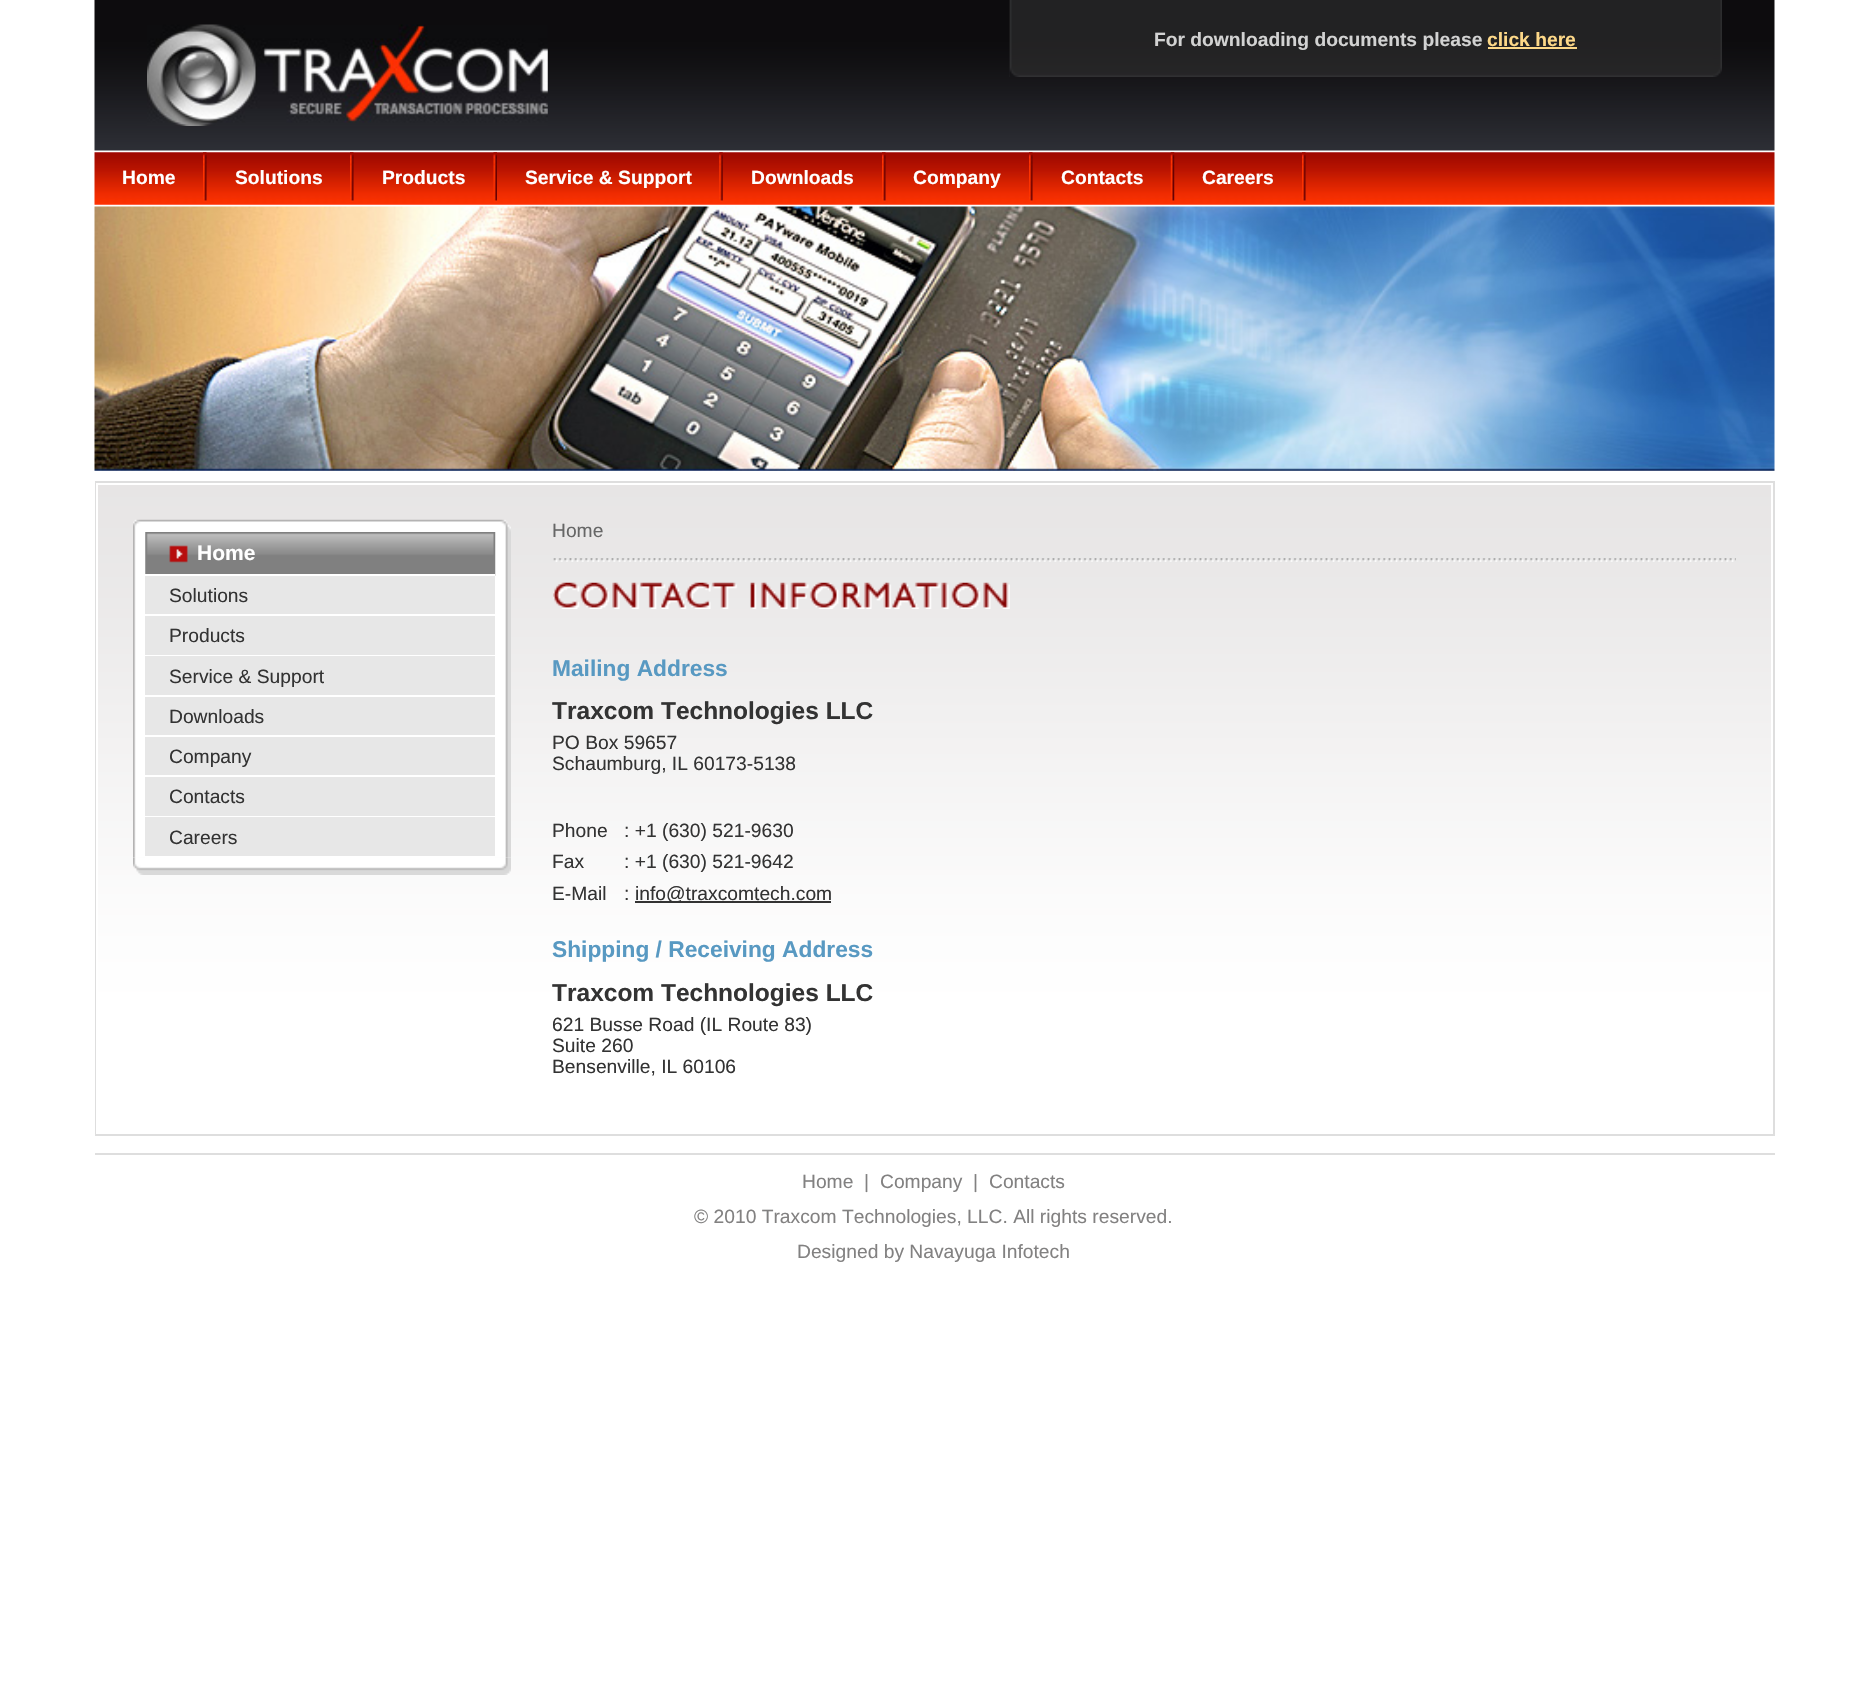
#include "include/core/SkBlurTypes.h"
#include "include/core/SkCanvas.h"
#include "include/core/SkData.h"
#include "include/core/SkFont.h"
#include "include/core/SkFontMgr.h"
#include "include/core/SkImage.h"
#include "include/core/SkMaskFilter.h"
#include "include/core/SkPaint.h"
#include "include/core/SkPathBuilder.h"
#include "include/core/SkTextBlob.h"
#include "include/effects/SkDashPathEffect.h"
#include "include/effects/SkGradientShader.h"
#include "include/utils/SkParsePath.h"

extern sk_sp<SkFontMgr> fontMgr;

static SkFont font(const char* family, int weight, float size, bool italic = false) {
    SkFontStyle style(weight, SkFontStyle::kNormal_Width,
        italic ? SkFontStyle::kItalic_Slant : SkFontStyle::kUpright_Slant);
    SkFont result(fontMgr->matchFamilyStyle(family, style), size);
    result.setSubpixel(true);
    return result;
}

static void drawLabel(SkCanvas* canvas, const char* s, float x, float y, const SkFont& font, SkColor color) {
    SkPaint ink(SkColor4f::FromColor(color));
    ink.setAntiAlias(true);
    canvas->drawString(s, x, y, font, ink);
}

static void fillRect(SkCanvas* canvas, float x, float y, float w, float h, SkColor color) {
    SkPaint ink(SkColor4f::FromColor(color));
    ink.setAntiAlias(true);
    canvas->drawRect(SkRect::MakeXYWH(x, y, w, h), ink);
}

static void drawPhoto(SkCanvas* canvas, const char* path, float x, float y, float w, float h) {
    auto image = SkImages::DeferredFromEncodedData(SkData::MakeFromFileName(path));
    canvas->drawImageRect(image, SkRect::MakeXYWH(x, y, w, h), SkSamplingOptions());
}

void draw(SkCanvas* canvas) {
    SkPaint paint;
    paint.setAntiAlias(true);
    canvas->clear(0xFFFFFFFF);
    drawPhoto(canvas, "assets/img1.png", 94, 0, 1681, 151);
    drawPhoto(canvas, "assets/img2.png", 147, 24, 401, 102);
    drawPhoto(canvas, "assets/img3.png", 1009, 0, 705, 77);
    drawPhoto(canvas, "assets/img4.png", 1009, 0, 10, 77);
    SkFont font1 = font("Liberation Sans", 700, 19.25f);
    drawLabel(canvas, "For downloading documents please", 1154, 46, font1, 0xFFD2D2D2);
    drawLabel(canvas, "click here", 1487, 46, font1, 0xFFFDD888);
    fillRect(canvas, 1488, 47, 89, 2, 0xFFFDD888);
    drawPhoto(canvas, "assets/img5.png", 1713, 0, 9, 77);
    drawPhoto(canvas, "assets/img6.png", 94, 152, 1681, 53);
    drawPhoto(canvas, "assets/img7.png", 203, 152, 4, 50);
    drawLabel(canvas, "Home", 122, 184, font1, 0xFFFFFFFF);
    drawPhoto(canvas, "assets/img8.png", 350, 152, 4, 50);
    drawLabel(canvas, "Solutions", 235, 184, font1, 0xFFFFFFFF);
    drawPhoto(canvas, "assets/img9.png", 493, 152, 4, 50);
    drawLabel(canvas, "Products", 382, 184, font1, 0xFFFFFFFF);
    drawPhoto(canvas, "assets/img10.png", 719, 152, 4, 50);
    drawLabel(canvas, "Service & Support", 525, 184, font1, 0xFFFFFFFF);
    drawPhoto(canvas, "assets/img11.png", 882, 152, 4, 50);
    drawLabel(canvas, "Downloads", 751, 184, font1, 0xFFFFFFFF);
    drawPhoto(canvas, "assets/img12.png", 1029, 152, 4, 50);
    drawLabel(canvas, "Company", 913, 184, font1, 0xFFFFFFFF);
    drawPhoto(canvas, "assets/img13.png", 1170, 152, 5, 50);
    drawLabel(canvas, "Contacts", 1061, 184, font1, 0xFFFFFFFF);
    drawPhoto(canvas, "assets/img14.png", 1302, 152, 4, 50);
    drawLabel(canvas, "Careers", 1202, 184, font1, 0xFFFFFFFF);
    drawPhoto(canvas, "assets/img15.png", 94, 206, 1681, 265);
    paint.setStroke(true);
    paint.setStrokeWidth(2);
    paint.setColor(0xFFDEDEDE);
    canvas->drawRect(SkRect::MakeXYWH(96, 482, 1678, 653), paint);
    drawPhoto(canvas, "assets/img16.png", 98, 485, 1673, 518);
    paint.setColor(0xFFFFFFFF);
    canvas->drawRect(SkRect::MakeXYWH(97, 484, 1675, 649), paint);
    drawPhoto(canvas, "assets/img17.png", 133, 519, 378, 13);
    drawPhoto(canvas, "assets/img18.png", 133, 532, 378, 326);
    drawPhoto(canvas, "assets/img19.png", 145, 532, 351, 44);
    fillRect(canvas, 145, 574, 350, 2, 0xFFFFFFFF);
    SkFont font2 = font("Liberation Sans", 700, 21);
    drawLabel(canvas, "Home", 197, 560, font2, 0xFFFFFFFF);
    fillRect(canvas, 145, 576, 350, 38, 0xFFE7E7E7);
    SkFont font3 = font("Liberation Sans", 400, 19.25f);
    drawLabel(canvas, "Solutions", 169, 602, font3, 0xFF333333);
    fillRect(canvas, 145, 616, 350, 39, 0xFFE7E7E7);
    drawLabel(canvas, "Products", 169, 642, font3, 0xFF333333);
    fillRect(canvas, 145, 656, 350, 39, 0xFFE7E7E7);
    drawLabel(canvas, "Service & Support", 169, 683, font3, 0xFF333333);
    fillRect(canvas, 145, 697, 350, 38, 0xFFE7E7E7);
    drawLabel(canvas, "Downloads", 169, 723, font3, 0xFF333333);
    fillRect(canvas, 145, 737, 350, 38, 0xFFE7E7E7);
    drawLabel(canvas, "Company", 169, 763, font3, 0xFF333333);
    fillRect(canvas, 145, 777, 350, 39, 0xFFE7E7E7);
    drawLabel(canvas, "Contacts", 169, 803, font3, 0xFF333333);
    fillRect(canvas, 145, 817, 350, 39, 0xFFE7E7E7);
    fillRect(canvas, 145, 857, 350, 1, 0xFFFFFFFF);
    drawLabel(canvas, "Careers", 169, 844, font3, 0xFF333333);
    drawPhoto(canvas, "assets/img20.png", 133, 857, 378, 18);
    drawPhoto(canvas, "assets/img21.png", 553, 558, 1183, 4);
    drawLabel(canvas, "Home", 552, 537, font3, 0xFF666666);
    drawPhoto(canvas, "assets/img22.png", 553, 582, 457, 27);
    SkFont font4 = font("Liberation Sans", 700, 22.75f);
    drawLabel(canvas, "Mailing Address", 552, 676, font4, 0xFF5899C2);
    SkFont font5 = font("Liberation Sans", 700, 24.5f);
    drawLabel(canvas, "Traxcom Technologies LLC", 552, 719, font5, 0xFF333333);
    drawLabel(canvas, "PO Box 59657", 552, 749, font3, 0xFF333333);
    drawLabel(canvas, "Schaumburg, IL 60173-5138", 552, 770, font3, 0xFF333333);
    drawLabel(canvas, "Phone", 552, 837, font3, 0xFF333333);
    drawLabel(canvas, ": +1 (630) 521-9630", 624, 837, font3, 0xFF333333);
    drawLabel(canvas, "Fax", 552, 868, font3, 0xFF333333);
    drawLabel(canvas, ": +1 (630) 521-9642", 624, 868, font3, 0xFF333333);
    drawLabel(canvas, "E-Mail", 552, 900, font3, 0xFF333333);
    drawLabel(canvas, ":", 624, 900, font3, 0xFF333333);
    fillRect(canvas, 635, 901, 196, 2, 0xFF333333);
    drawLabel(canvas, "info@traxcomtech.com", 635, 900, font3, 0xFF333333);
    drawLabel(canvas, "Shipping / Receiving Address", 552, 957, font4, 0xFF5899C2);
    drawLabel(canvas, "Traxcom Technologies LLC", 552, 1001, font5, 0xFF333333);
    drawLabel(canvas, "621 Busse Road (IL Route 83)", 552, 1031, font3, 0xFF333333);
    drawLabel(canvas, "Suite 260", 552, 1052, font3, 0xFF333333);
    drawLabel(canvas, "Bensenville, IL 60106", 552, 1073, font3, 0xFF333333);
    fillRect(canvas, 95, 1153, 1680, 2, 0xFFDEDEDE);
    drawLabel(canvas, "Home", 802, 1188, font3, 0xFF828181);
    drawLabel(canvas, "|", 864, 1188, font3, 0xFF828181);
    drawLabel(canvas, "Company", 880, 1188, font3, 0xFF828181);
    drawLabel(canvas, "|", 973, 1188, font3, 0xFF828181);
    drawLabel(canvas, "Contacts", 989, 1188, font3, 0xFF828181);
    drawLabel(canvas, "© 2010 Traxcom Technologies, LLC. All rights reserved.", 694, 1223, font3, 0xFF828181);
    drawLabel(canvas, "Designed by Navayuga Infotech", 797, 1258, font3, 0xFF828181);
}
